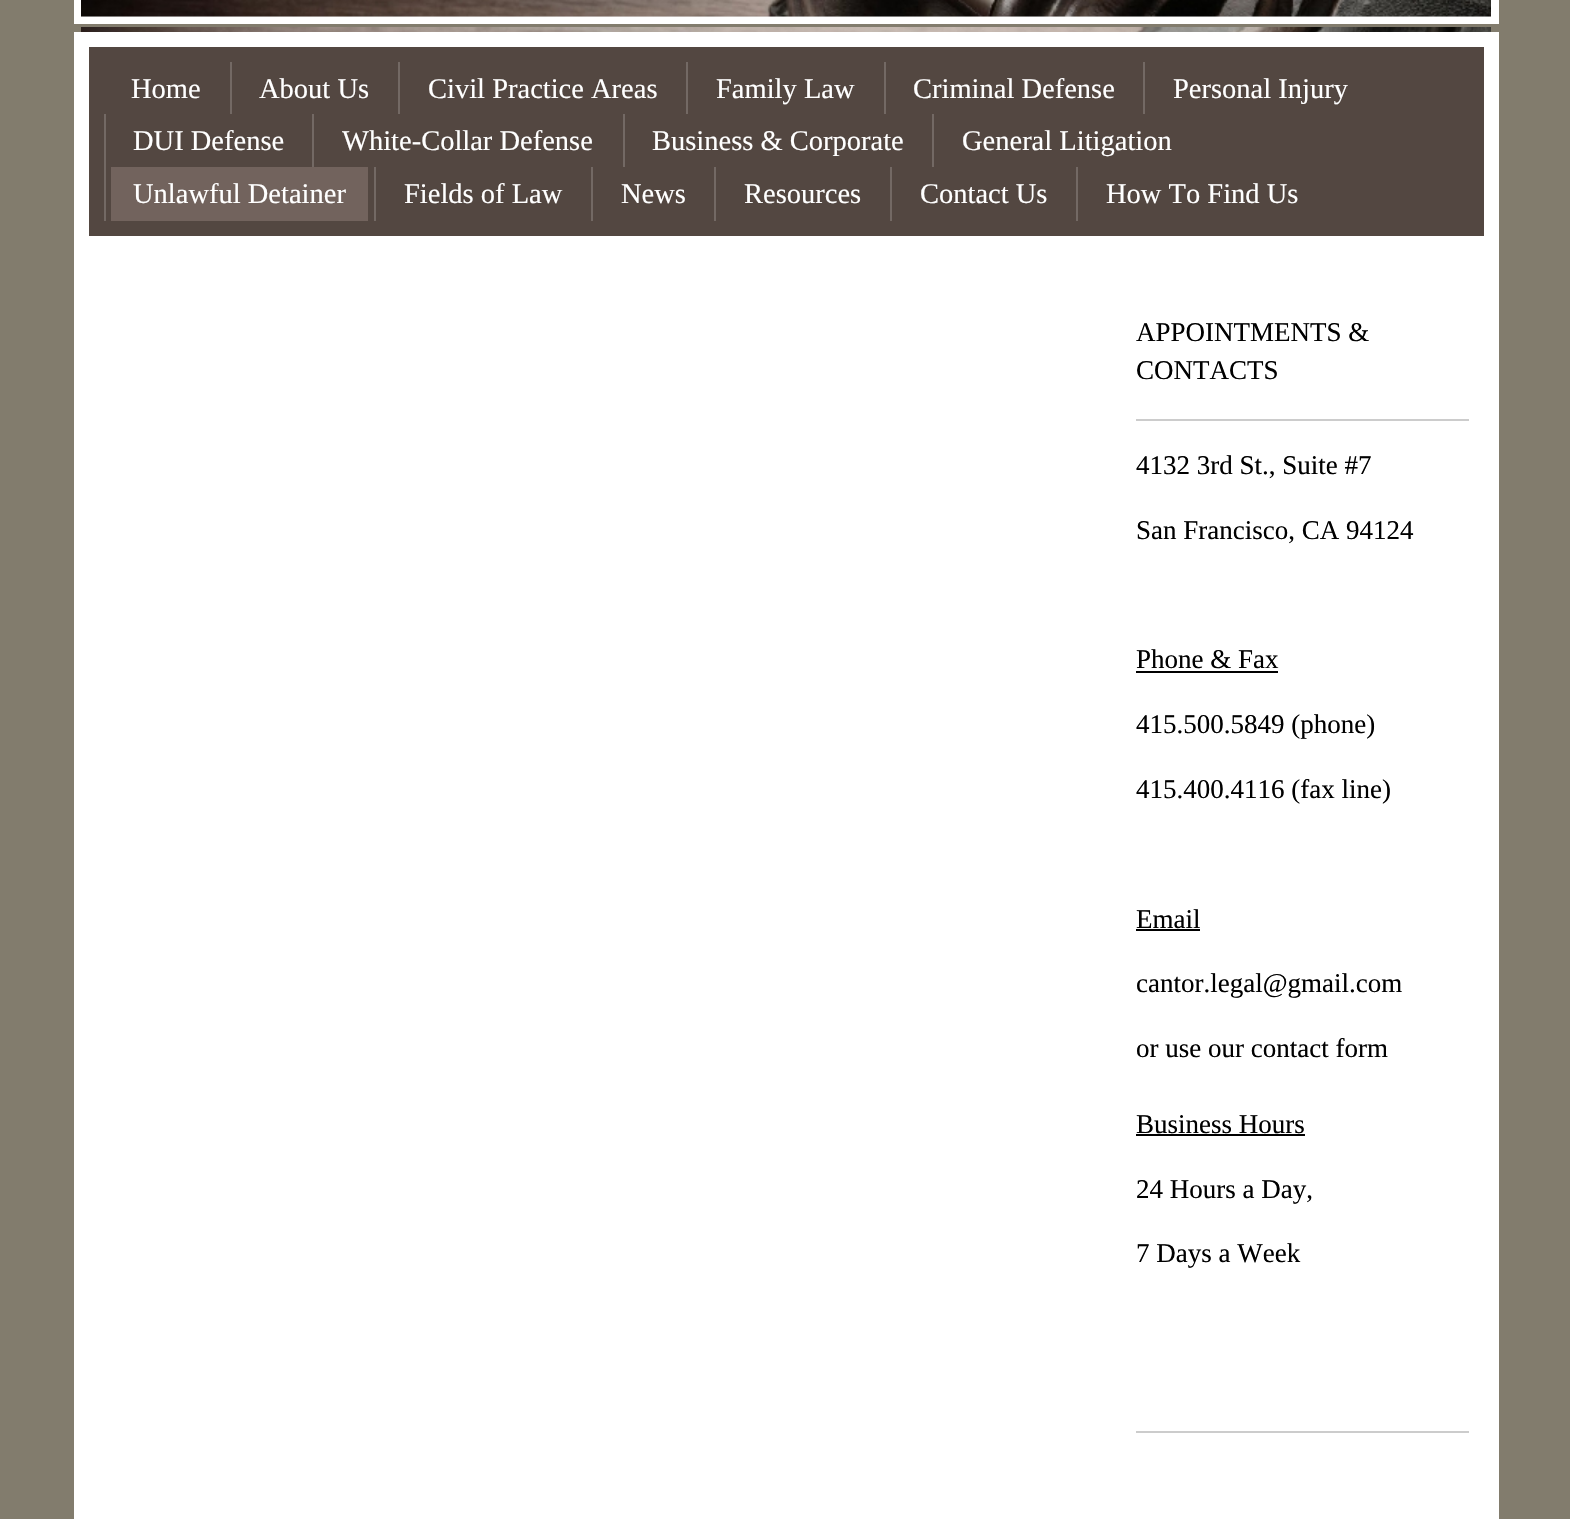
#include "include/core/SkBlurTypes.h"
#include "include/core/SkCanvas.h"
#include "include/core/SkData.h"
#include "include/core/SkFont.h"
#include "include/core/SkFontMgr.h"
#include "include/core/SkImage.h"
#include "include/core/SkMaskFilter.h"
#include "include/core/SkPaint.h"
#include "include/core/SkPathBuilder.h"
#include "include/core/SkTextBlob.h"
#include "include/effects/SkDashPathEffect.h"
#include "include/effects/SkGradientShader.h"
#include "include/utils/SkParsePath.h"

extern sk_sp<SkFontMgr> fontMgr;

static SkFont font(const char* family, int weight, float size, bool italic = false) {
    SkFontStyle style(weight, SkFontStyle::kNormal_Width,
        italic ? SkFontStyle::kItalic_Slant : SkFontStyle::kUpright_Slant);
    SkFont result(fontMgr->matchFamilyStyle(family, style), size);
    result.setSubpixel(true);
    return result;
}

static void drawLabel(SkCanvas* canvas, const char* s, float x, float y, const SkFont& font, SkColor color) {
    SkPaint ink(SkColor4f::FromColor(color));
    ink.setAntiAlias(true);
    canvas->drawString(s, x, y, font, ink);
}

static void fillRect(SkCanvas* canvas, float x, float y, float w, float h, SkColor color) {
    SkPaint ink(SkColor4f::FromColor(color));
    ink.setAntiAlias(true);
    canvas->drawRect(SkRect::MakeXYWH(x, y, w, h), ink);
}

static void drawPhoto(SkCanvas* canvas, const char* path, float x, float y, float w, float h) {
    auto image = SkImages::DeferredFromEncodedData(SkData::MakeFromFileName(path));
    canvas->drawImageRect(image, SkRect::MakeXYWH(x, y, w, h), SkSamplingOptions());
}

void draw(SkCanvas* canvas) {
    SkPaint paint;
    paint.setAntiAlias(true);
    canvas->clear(0xFF827C6D);
    fillRect(canvas, 74, 0, 1425, 24, 0xFFFFFFFF);
    fillRect(canvas, 81, 16, 1410, 1, 0xFFEEEEEE);
    drawPhoto(canvas, "assets/img1.png", 81, 0, 1410, 17);
    drawPhoto(canvas, "assets/img2.png", 81, 27, 1410, 5);
    fillRect(canvas, 74, 32, 1425, 1487, 0xFFFFFFFF);
    fillRect(canvas, 89, 47, 1395, 189, 0xFF534741);
    SkFont font1 = font("Liberation Serif", 400, 28.5f);
    drawLabel(canvas, "Home", 131, 98, font1, 0xFFFFFFFF);
    fillRect(canvas, 230, 62, 2, 52, 0xFF736964);
    drawLabel(canvas, "About Us", 259, 98, font1, 0xFFFFFFFF);
    fillRect(canvas, 398, 62, 2, 52, 0xFF736964);
    drawLabel(canvas, "Civil Practice Areas", 428, 98, font1, 0xFFFFFFFF);
    fillRect(canvas, 686, 62, 2, 52, 0xFF736964);
    drawLabel(canvas, "Family Law", 716, 98, font1, 0xFFFFFFFF);
    fillRect(canvas, 884, 62, 2, 52, 0xFF736964);
    drawLabel(canvas, "Criminal Defense", 913, 98, font1, 0xFFFFFFFF);
    fillRect(canvas, 1143, 62, 2, 52, 0xFF736964);
    drawLabel(canvas, "Personal Injury", 1173, 98, font1, 0xFFFFFFFF);
    fillRect(canvas, 104, 114, 2, 107, 0xFF736964);
    drawLabel(canvas, "DUI Defense", 133, 150, font1, 0xFFFFFFFF);
    fillRect(canvas, 312, 114, 2, 53, 0xFF736964);
    drawLabel(canvas, "White-Collar Defense", 342, 150, font1, 0xFFFFFFFF);
    fillRect(canvas, 623, 114, 2, 53, 0xFF736964);
    drawLabel(canvas, "Business & Corporate", 652, 150, font1, 0xFFFFFFFF);
    fillRect(canvas, 932, 114, 2, 53, 0xFF736964);
    drawLabel(canvas, "General Litigation", 962, 150, font1, 0xFFFFFFFF);
    fillRect(canvas, 111, 167, 257, 54, 0xFF72635D);
    drawLabel(canvas, "Unlawful Detainer", 133, 203, font1, 0xFFFFFFFF);
    fillRect(canvas, 374, 167, 2, 54, 0xFF736964);
    drawLabel(canvas, "Fields of Law", 404, 203, font1, 0xFFFFFFFF);
    fillRect(canvas, 591, 167, 2, 54, 0xFF736964);
    drawLabel(canvas, "News", 621, 203, font1, 0xFFFFFFFF);
    fillRect(canvas, 714, 167, 2, 54, 0xFF736964);
    drawLabel(canvas, "Resources", 744, 203, font1, 0xFFFFFFFF);
    fillRect(canvas, 890, 167, 2, 54, 0xFF736964);
    drawLabel(canvas, "Contact Us", 920, 203, font1, 0xFFFFFFFF);
    fillRect(canvas, 1076, 167, 2, 54, 0xFF736964);
    drawLabel(canvas, "How To Find Us", 1106, 203, font1, 0xFFFFFFFF);
    SkFont font2 = font("Liberation Serif", 400, 27);
    drawLabel(canvas, "APPOINTMENTS &", 1136, 341, font2, 0xFF000000);
    drawLabel(canvas, "CONTACTS", 1136, 379, font2, 0xFF000000);
    fillRect(canvas, 1136, 419, 333, 2, 0xFFCCCCCC);
    drawLabel(canvas, "4132 3rd St., Suite #7", 1136, 474, font2, 0xFF000000);
    drawLabel(canvas, "San Francisco, CA 94124", 1136, 539, font2, 0xFF000000);
    drawLabel(canvas, "Phone & Fax", 1136, 668, font2, 0xFF000000);
    fillRect(canvas, 1136, 671, 142, 2, 0xFF000000);
    drawLabel(canvas, "415.500.5849 (phone)", 1136, 733, font2, 0xFF000000);
    drawLabel(canvas, "415.400.4116 (fax line)", 1136, 798, font2, 0xFF000000);
    drawLabel(canvas, "Email", 1136, 928, font2, 0xFF000000);
    fillRect(canvas, 1136, 929, 64, 2, 0xFF000000);
    drawLabel(canvas, "cantor.legal@gmail.com", 1136, 992, font2, 0xFF000000);
    drawLabel(canvas, "or use our contact form", 1136, 1057, font2, 0xFF000000);
    drawLabel(canvas, "Business Hours", 1136, 1133, font2, 0xFF000000);
    fillRect(canvas, 1136, 1134, 169, 2, 0xFF000000);
    drawLabel(canvas, "24 Hours a Day,", 1136, 1198, font2, 0xFF000000);
    drawLabel(canvas, "7 Days a Week", 1136, 1262, font2, 0xFF000000);
    fillRect(canvas, 1136, 1431, 333, 2, 0xFFCCCCCC);
}
